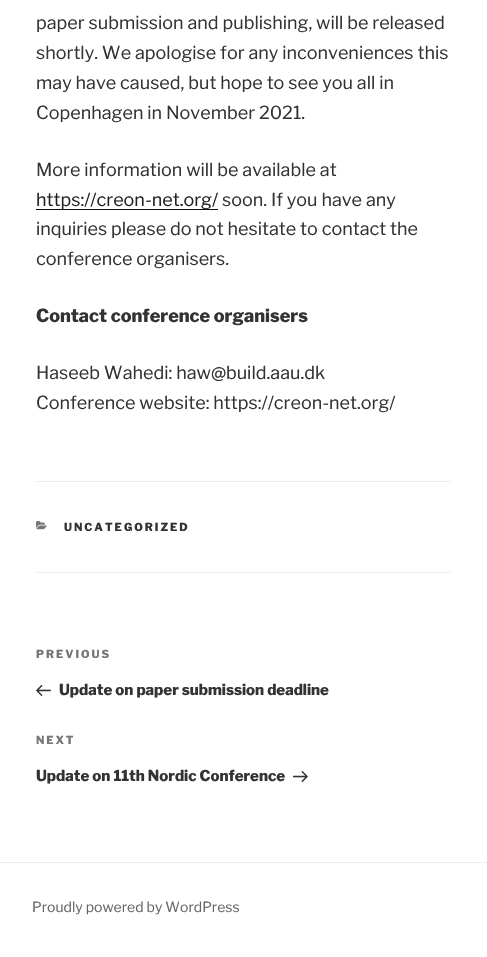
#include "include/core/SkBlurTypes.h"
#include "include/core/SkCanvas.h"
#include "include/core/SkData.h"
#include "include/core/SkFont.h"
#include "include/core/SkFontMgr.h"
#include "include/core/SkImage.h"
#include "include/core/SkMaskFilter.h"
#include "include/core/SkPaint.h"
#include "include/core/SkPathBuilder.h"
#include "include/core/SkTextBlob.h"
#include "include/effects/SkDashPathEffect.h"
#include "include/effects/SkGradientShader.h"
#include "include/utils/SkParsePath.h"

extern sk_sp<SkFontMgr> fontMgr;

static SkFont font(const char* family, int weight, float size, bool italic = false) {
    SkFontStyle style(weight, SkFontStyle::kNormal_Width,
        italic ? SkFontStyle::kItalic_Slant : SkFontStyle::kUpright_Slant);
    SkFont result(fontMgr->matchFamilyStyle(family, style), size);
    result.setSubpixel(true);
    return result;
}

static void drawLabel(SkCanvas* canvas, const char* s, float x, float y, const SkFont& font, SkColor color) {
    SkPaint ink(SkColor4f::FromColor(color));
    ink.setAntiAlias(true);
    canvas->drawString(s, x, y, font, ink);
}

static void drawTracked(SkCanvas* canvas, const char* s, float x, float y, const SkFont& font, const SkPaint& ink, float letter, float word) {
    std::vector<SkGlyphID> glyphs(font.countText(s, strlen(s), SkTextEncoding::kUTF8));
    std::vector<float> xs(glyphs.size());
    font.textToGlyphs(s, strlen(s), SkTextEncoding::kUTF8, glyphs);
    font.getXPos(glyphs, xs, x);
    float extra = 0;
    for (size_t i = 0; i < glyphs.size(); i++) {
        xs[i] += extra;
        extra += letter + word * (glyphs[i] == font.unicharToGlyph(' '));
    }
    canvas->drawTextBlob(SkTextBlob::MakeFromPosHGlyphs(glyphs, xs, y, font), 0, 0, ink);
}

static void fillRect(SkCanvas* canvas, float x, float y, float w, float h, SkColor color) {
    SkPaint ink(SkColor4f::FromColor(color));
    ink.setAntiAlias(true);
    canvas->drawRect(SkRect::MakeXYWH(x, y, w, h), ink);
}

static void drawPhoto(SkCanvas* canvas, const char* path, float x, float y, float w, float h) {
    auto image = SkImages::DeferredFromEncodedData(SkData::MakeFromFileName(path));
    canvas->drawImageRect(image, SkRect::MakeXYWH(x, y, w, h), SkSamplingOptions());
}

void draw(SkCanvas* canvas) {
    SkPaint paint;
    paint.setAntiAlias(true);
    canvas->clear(0xFFFFFFFF);
    SkFont font1 = font("Libre Franklin", 100, 18);
    drawLabel(canvas, "paper submission and publishing, will be released", 36, 29, font1, 0xFF333333);
    drawLabel(canvas, "shortly. We apologise for any inconveniences this", 36, 59, font1, 0xFF333333);
    drawLabel(canvas, "may have caused, but hope to see you all in", 36, 89, font1, 0xFF333333);
    drawLabel(canvas, "Copenhagen in November 2021.", 36, 119, font1, 0xFF333333);
    drawLabel(canvas, "More information will be available at", 36, 176, font1, 0xFF333333);
    fillRect(canvas, 36, 209, 182, 1, 0xFF0F0F0F);
    drawLabel(canvas, "https://creon-net.org/", 36, 206, font1, 0xFF222222);
    drawLabel(canvas, "soon. If you have any", 222, 206, font1, 0xFF333333);
    drawLabel(canvas, "inquiries please do not hesitate to contact the", 36, 235, font1, 0xFF333333);
    drawLabel(canvas, "conference organisers.", 36, 265, font1, 0xFF333333);
    SkFont font2 = font("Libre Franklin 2", 100, 18);
    drawLabel(canvas, "Contact conference organisers", 36, 322, font2, 0xFF333333);
    drawLabel(canvas, "Haseeb Wahedi: haw@build.aau.dk", 36, 379, font1, 0xFF333333);
    drawLabel(canvas, "Conference website: https://creon-net.org/", 36, 409, font1, 0xFF333333);
    fillRect(canvas, 36, 481, 415, 1, 0xFFEEEEEE);
    fillRect(canvas, 36, 572, 415, 1, 0xFFEEEEEE);
    drawPhoto(canvas, "assets/img1.png", 36, 521, 11, 9);
    SkFont font3 = font("Libre Franklin 2", 100, 11);
    paint.setColor(0xFF333333);
    drawTracked(canvas, "UNCATEGORIZED", 64, 531, font3, paint, 2, 0);
    paint.setColor(0xFF767676);
    drawTracked(canvas, "PREVIOUS", 36, 658, font3, paint, 2, 0);
    drawPhoto(canvas, "assets/img2.png", 36, 685, 15, 11);
    SkFont font4 = font("Libre Franklin 2", 100, 15);
    drawLabel(canvas, "Update on paper submission deadline", 59, 695, font4, 0xFF333333);
    drawTracked(canvas, "NEXT", 36, 744, font3, paint, 2, 0);
    drawLabel(canvas, "Update on 11th Nordic Conference", 36, 781, font4, 0xFF333333);
    drawPhoto(canvas, "assets/img3.png", 293, 771, 15, 12);
    fillRect(canvas, 0, 862, 487, 1, 0xFFEEEEEE);
    SkFont font5 = font("Libre Franklin", 100, 14);
    drawLabel(canvas, "Proudly powered by WordPress", 32, 912, font5, 0xFF666666);
}
